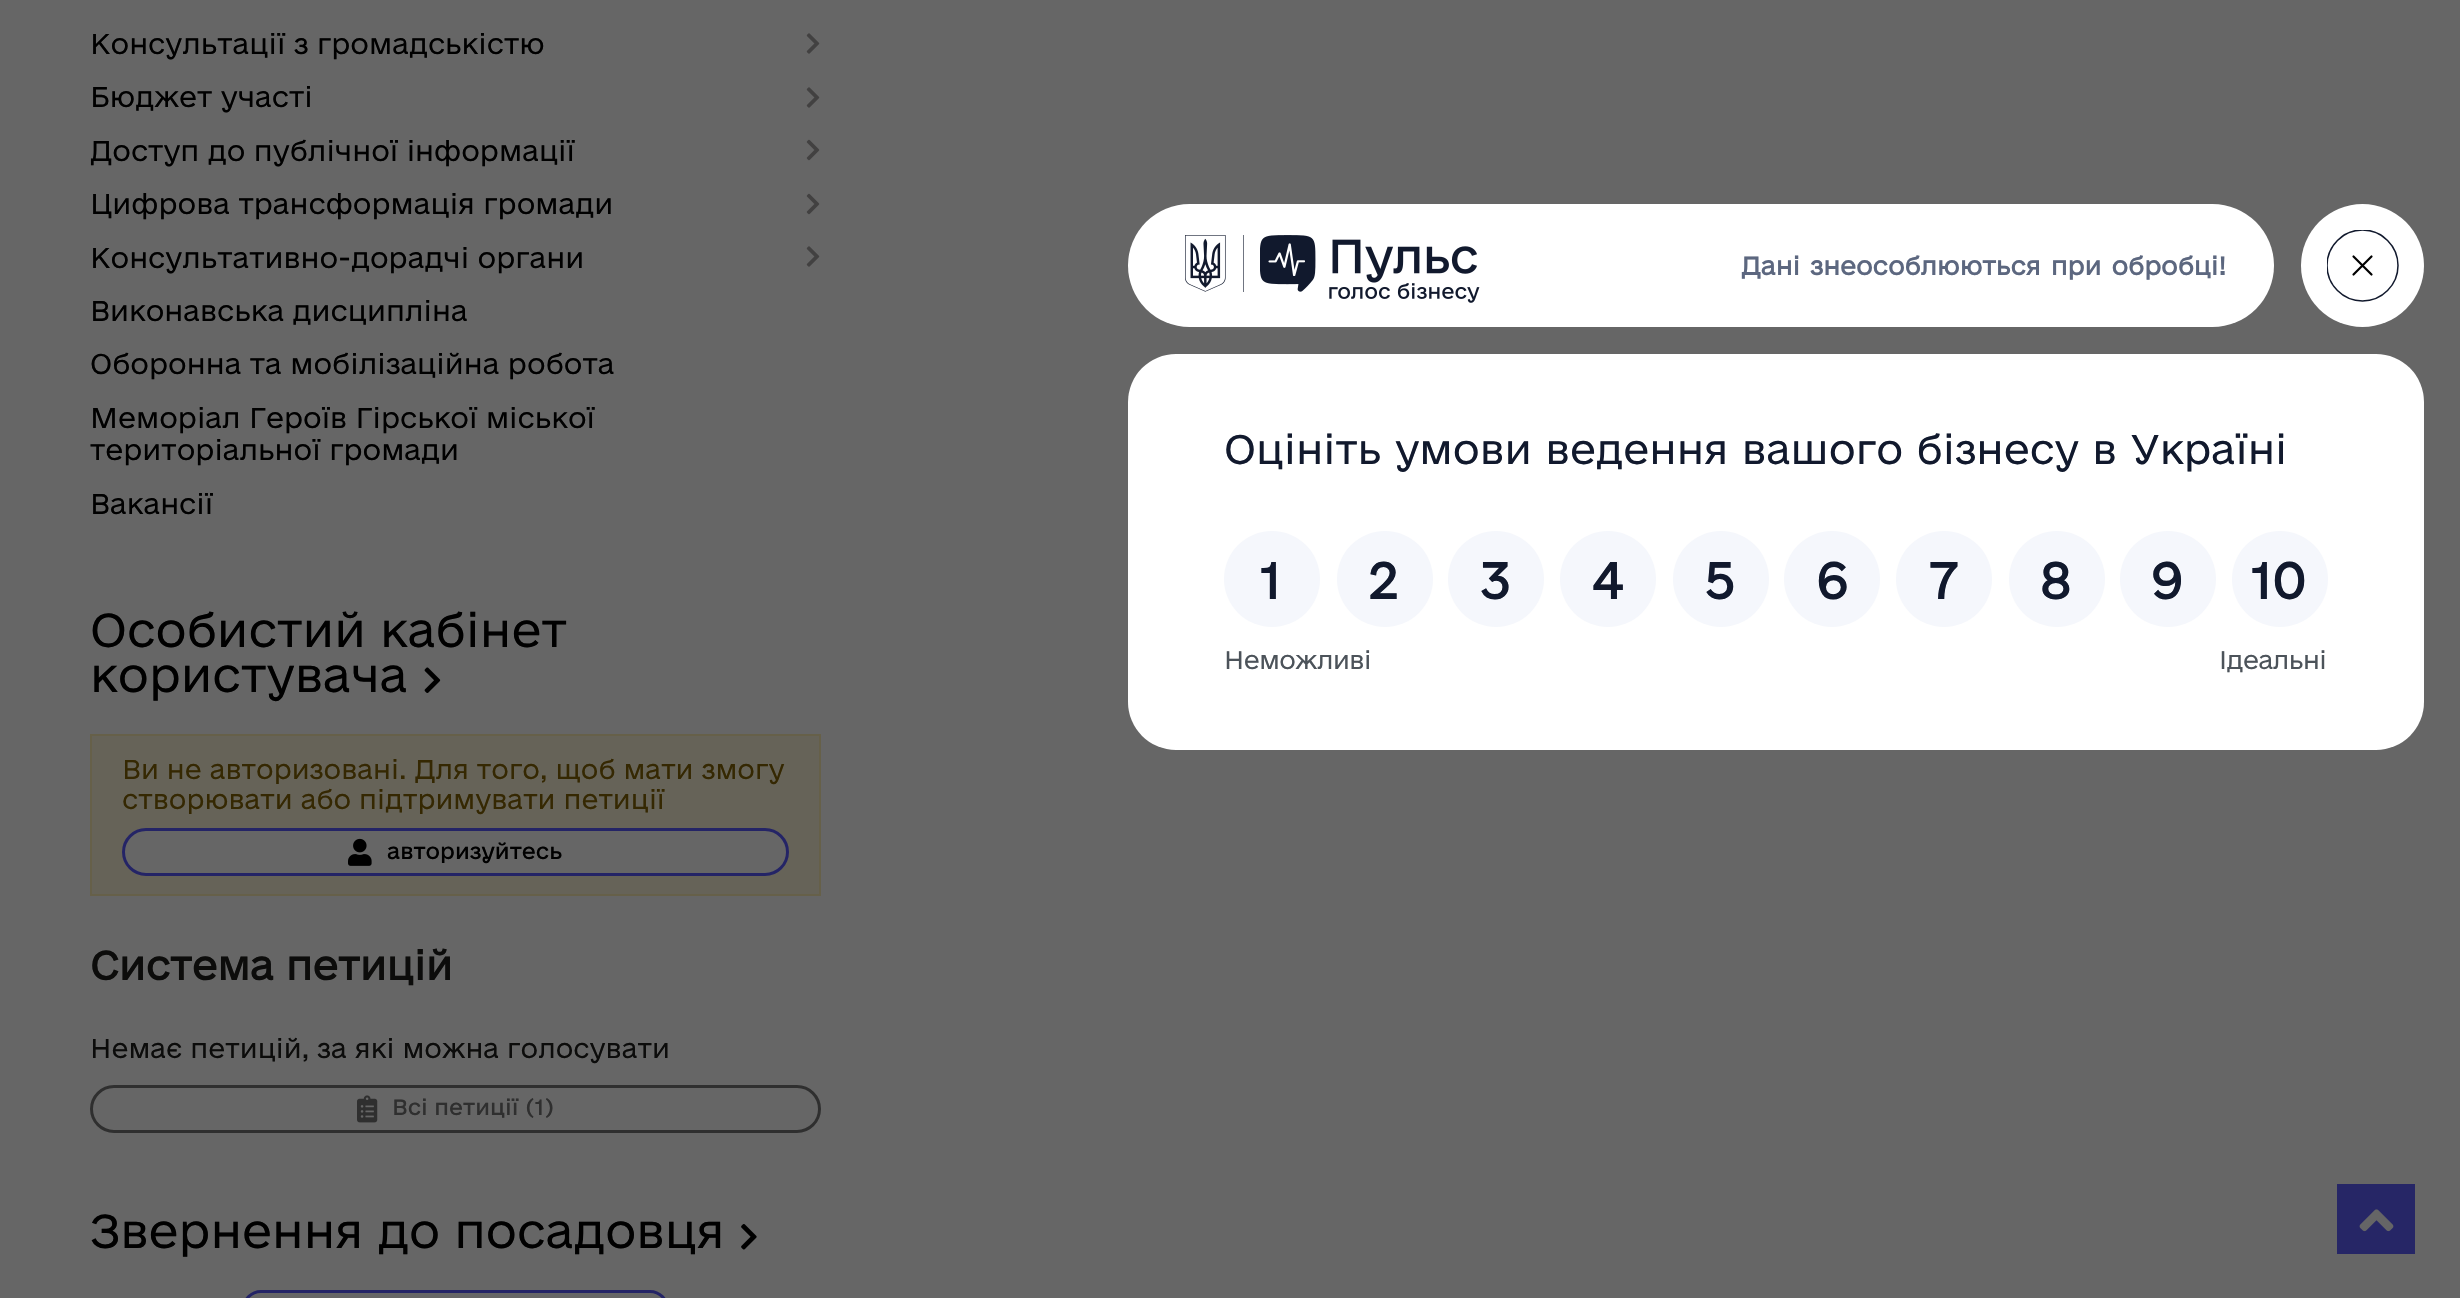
#include "include/core/SkBlurTypes.h"
#include "include/core/SkCanvas.h"
#include "include/core/SkData.h"
#include "include/core/SkFont.h"
#include "include/core/SkFontMgr.h"
#include "include/core/SkImage.h"
#include "include/core/SkMaskFilter.h"
#include "include/core/SkPaint.h"
#include "include/core/SkPathBuilder.h"
#include "include/core/SkTextBlob.h"
#include "include/effects/SkDashPathEffect.h"
#include "include/effects/SkGradientShader.h"
#include "include/utils/SkParsePath.h"

extern sk_sp<SkFontMgr> fontMgr;

static SkFont font(const char* family, int weight, float size, bool italic = false) {
    SkFontStyle style(weight, SkFontStyle::kNormal_Width,
        italic ? SkFontStyle::kItalic_Slant : SkFontStyle::kUpright_Slant);
    SkFont result(fontMgr->matchFamilyStyle(family, style), size);
    result.setSubpixel(true);
    return result;
}

static void drawLabel(SkCanvas* canvas, const char* s, float x, float y, const SkFont& font, SkColor color) {
    SkPaint ink(SkColor4f::FromColor(color));
    ink.setAntiAlias(true);
    canvas->drawString(s, x, y, font, ink);
}

static void drawTracked(SkCanvas* canvas, const char* s, float x, float y, const SkFont& font, const SkPaint& ink, float letter, float word) {
    std::vector<SkGlyphID> glyphs(font.countText(s, strlen(s), SkTextEncoding::kUTF8));
    std::vector<float> xs(glyphs.size());
    font.textToGlyphs(s, strlen(s), SkTextEncoding::kUTF8, glyphs);
    font.getXPos(glyphs, xs, x);
    float extra = 0;
    for (size_t i = 0; i < glyphs.size(); i++) {
        xs[i] += extra;
        extra += letter + word * (glyphs[i] == font.unicharToGlyph(' '));
    }
    canvas->drawTextBlob(SkTextBlob::MakeFromPosHGlyphs(glyphs, xs, y, font), 0, 0, ink);
}

static void fillRect(SkCanvas* canvas, float x, float y, float w, float h, SkColor color) {
    SkPaint ink(SkColor4f::FromColor(color));
    ink.setAntiAlias(true);
    canvas->drawRect(SkRect::MakeXYWH(x, y, w, h), ink);
}

static void fillRRect(SkCanvas* canvas, float x, float y, float w, float h, float radius, SkColor color) {
    SkPaint ink(SkColor4f::FromColor(color));
    ink.setAntiAlias(true);
    canvas->drawRoundRect(SkRect::MakeXYWH(x, y, w, h), radius, radius, ink);
}

static void drawPhoto(SkCanvas* canvas, const char* path, float x, float y, float w, float h) {
    auto image = SkImages::DeferredFromEncodedData(SkData::MakeFromFileName(path));
    canvas->drawImageRect(image, SkRect::MakeXYWH(x, y, w, h), SkSamplingOptions());
}

static SkPath parsePath(const char* data, bool evenOdd = false) {
    SkPath result = *SkParsePath::FromSVGString(data);
    if (evenOdd) result.setFillType(SkPathFillType::kEvenOdd);
    return result;
}

void draw(SkCanvas* canvas) {
    SkPaint paint;
    paint.setAntiAlias(true);
    canvas->clear(0xFF666666);
    SkFont font1 = font("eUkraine", 300, 27);
    drawLabel(canvas, "Консультації з громадськістю", 90, 54, font1, 0xFF000000);
    drawPhoto(canvas, "assets/img1.png", 806, 33, 14, 21);
    drawLabel(canvas, "Бюджет участі", 90, 107, font1, 0xFF000000);
    drawPhoto(canvas, "assets/img1.png", 806, 87, 14, 21);
    drawLabel(canvas, "Доступ до публічної інформації", 90, 161, font1, 0xFF000000);
    drawPhoto(canvas, "assets/img2.png", 806, 139, 14, 22);
    drawLabel(canvas, "Цифрова трансформація громади", 90, 214, font1, 0xFF000000);
    drawPhoto(canvas, "assets/img2.png", 806, 193, 14, 22);
    drawLabel(canvas, "Консультативно-дорадчі органи", 90, 268, font1, 0xFF000000);
    drawPhoto(canvas, "assets/img1.png", 806, 246, 14, 21);
    drawLabel(canvas, "Виконавська дисципліна", 90, 321, font1, 0xFF000000);
    drawLabel(canvas, "Оборонна та мобілізаційна робота", 90, 374, font1, 0xFF000000);
    drawLabel(canvas, "Меморіал Героїв Гірської міської", 90, 428, font1, 0xFF000000);
    drawLabel(canvas, "територіальної громади", 90, 460, font1, 0xFF000000);
    drawLabel(canvas, "Вакансії", 90, 514, font1, 0xFF000000);
    SkFont font2 = font("eUkraine", 300, 45);
    drawLabel(canvas, "Особистий кабінет", 90, 647, font2, 0xFF000000);
    drawLabel(canvas, "користувача", 90, 692, font2, 0xFF000000);
    drawPhoto(canvas, "assets/img3.png", 424, 667, 17, 26);
    paint.setColor(0xFF666358);
    canvas->drawRect(SkRect::MakeXYWH(91, 735, 729, 160), paint);
    paint.setStroke(true);
    paint.setStrokeWidth(2);
    paint.setColor(0xFF666049);
    canvas->drawRect(SkRect::MakeXYWH(91, 735, 729, 160), paint);
    SkFont font3 = font("eUkraine", 300, 25.5f);
    drawLabel(canvas, "Ви не авторизовані. Для того, щоб мати змогу", 122, 779, font3, 0xFF352802);
    drawLabel(canvas, "створювати або підтримувати петиції", 122, 809, font3, 0xFF352802);
    paint.setStroke(false);
    paint.setColor(0xFF666666);
    canvas->drawRoundRect(SkRect::MakeXYWH(123.5f, 829.5f, 664, 45), 22.5f, 22.5f, paint);
    paint.setStroke(true);
    paint.setStrokeWidth(3);
    paint.setColor(0xFF242466);
    canvas->drawRoundRect(SkRect::MakeXYWH(123.5f, 829.5f, 664, 45), 22.5f, 22.5f, paint);
    drawPhoto(canvas, "assets/img4.png", 348, 838, 24, 28);
    SkFont font4 = font("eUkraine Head", 400, 21);
    drawLabel(canvas, "авторизуйтесь", 387, 859, font4, 0xFF000000);
    SkFont font5 = font("eUkraine", 700, 38.25f);
    drawLabel(canvas, "Система петицій", 90, 980, font5, 0xFF0C0C0B);
    drawLabel(canvas, "Немає петицій, за які можна голосувати", 90, 1058, font3, 0xFF0C0C0B);
    paint.setColor(0xFF2F2F2F);
    canvas->drawRoundRect(SkRect::MakeXYWH(91.5f, 1086.5f, 728, 45), 22.5f, 22.5f, paint);
    drawPhoto(canvas, "assets/img5.png", 357, 1095, 21, 28);
    drawLabel(canvas, "Всі петиції (1)", 392, 1115, font4, 0xFF2F2F2F);
    drawLabel(canvas, "Звернення до посадовця", 90, 1248, font2, 0xFF000000);
    drawPhoto(canvas, "assets/img6.png", 741, 1224, 16, 26);
    paint.setColor(0xFF242466);
    canvas->drawRoundRect(SkRect::MakeXYWH(243.5f, 1291.5f, 424, 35), 25.5f, 25.5f, paint);
    fillRRect(canvas, 1128, 204, 1146, 123, 61.5f, 0xFFFFFFFF);
    drawPhoto(canvas, "assets/img7.png", 1185, 235, 295, 68);
    SkFont font6 = font("eUkraine", 700, 24);
    paint.setStroke(false);
    paint.setColor(0xFF5C677F);
    drawTracked(canvas, "Дані знеособлюються при обробці!", 1741, 275, font6, paint, 0, 2.5f);
    paint.setColor(0xFFFFFFFF);
    canvas->drawCircle(2362.5f, 265.5f, 61.5f, paint);
    canvas->save();
    canvas->clipRect(SkRect::MakeXYWH(2327, 230, 72, 72));
    paint.setStroke(true);
    paint.setStrokeWidth(1.5f);
    paint.setColor(0xFF11192D);
    canvas->drawPath(parsePath("M2362.5 230C2382 230 2398 246 2398 265.5C2398 285 2382 301 2362.5 301C2343 301 2327 285 2327 265.5C2327 246 2343 230 2362.5 230Z"), paint);
    canvas->restore();
    paint.setStrokeWidth(2.2f);
    paint.setStrokeCap(SkPaint::kRound_Cap);
    paint.setStrokeJoin(SkPaint::kRound_Join);
    paint.setColor(0xFF000000);
    canvas->drawPath(parsePath("M2371.5 256.5L2353.5 274.5M2353.5 256.5L2371.5 274.5"), paint);
    fillRRect(canvas, 1128, 354, 1296, 396, 48, 0xFFFFFFFF);
    SkFont font7 = font("eUkraine", 300, 39);
    paint.setStroke(false);
    paint.setColor(0xFF11192D);
    drawTracked(canvas, "Оцініть умови ведення вашого бізнесу в Україні", 1224, 464, font7, paint, 0, 1.25f);
    paint.setColor(0xFFF5F7FC);
    canvas->drawCircle(1272, 579, 48, paint);
    SkFont font8 = font("eUkraine", 700, 48);
    drawLabel(canvas, "1", 1260, 599, font8, 0xFF11192D);
    canvas->drawCircle(1385, 579, 48, paint);
    drawLabel(canvas, "2", 1369, 599, font8, 0xFF11192D);
    canvas->drawCircle(1496, 579, 48, paint);
    drawLabel(canvas, "3", 1481, 599, font8, 0xFF11192D);
    canvas->drawCircle(1608, 579, 48, paint);
    drawLabel(canvas, "4", 1592, 599, font8, 0xFF11192D);
    canvas->drawCircle(1721, 579, 48, paint);
    drawLabel(canvas, "5", 1705, 599, font8, 0xFF11192D);
    canvas->drawCircle(1832, 579, 48, paint);
    drawLabel(canvas, "6", 1816, 599, font8, 0xFF11192D);
    canvas->drawCircle(1944, 579, 48, paint);
    drawLabel(canvas, "7", 1930, 599, font8, 0xFF11192D);
    canvas->drawCircle(2057, 579, 48, paint);
    drawLabel(canvas, "8", 2040, 599, font8, 0xFF11192D);
    canvas->drawCircle(2168, 579, 48, paint);
    drawLabel(canvas, "9", 2152, 599, font8, 0xFF11192D);
    canvas->drawCircle(2280, 579, 48, paint);
    drawLabel(canvas, "10", 2251, 599, font8, 0xFF11192D);
    SkFont font9 = font("eUkraine", 300, 24);
    paint.setColor(0xFF4C535A);
    drawTracked(canvas, "Неможливі", 1224, 669, font9, paint, -0.5f, 0);
    drawTracked(canvas, "Ідеальні", 2219, 669, font9, paint, -0.5f, 0);
    fillRect(canvas, 2337, 1184, 78, 70, 0xFF262666);
    drawPhoto(canvas, "assets/img8.png", 2359, 1209, 35, 23);
}
